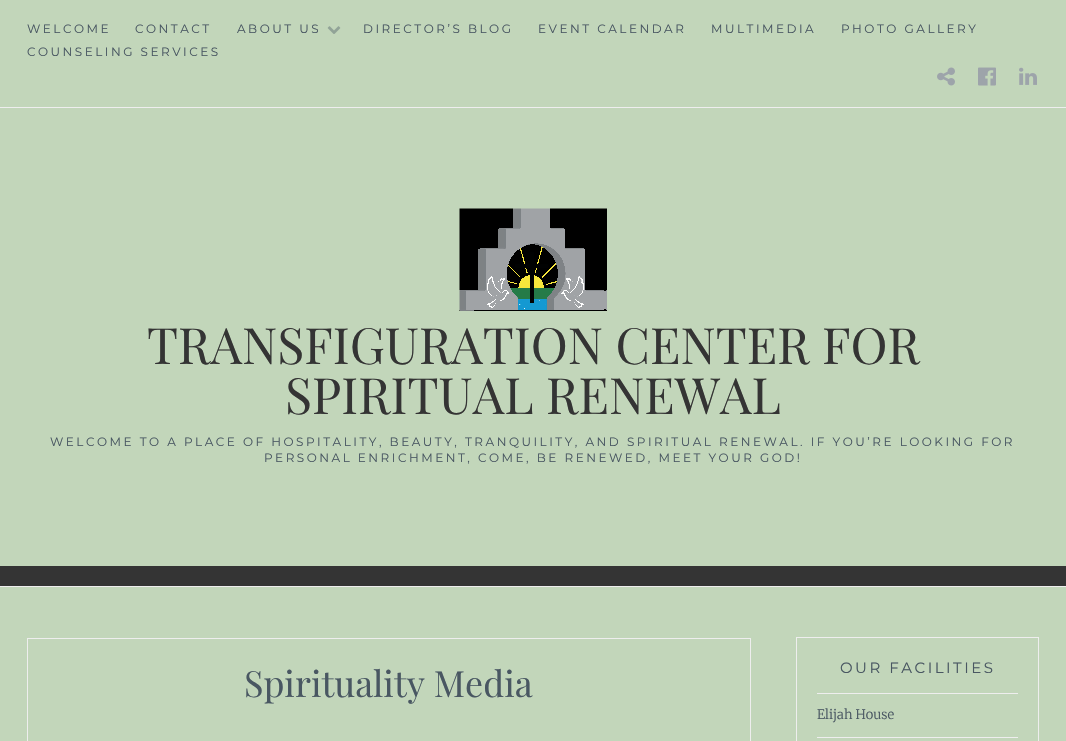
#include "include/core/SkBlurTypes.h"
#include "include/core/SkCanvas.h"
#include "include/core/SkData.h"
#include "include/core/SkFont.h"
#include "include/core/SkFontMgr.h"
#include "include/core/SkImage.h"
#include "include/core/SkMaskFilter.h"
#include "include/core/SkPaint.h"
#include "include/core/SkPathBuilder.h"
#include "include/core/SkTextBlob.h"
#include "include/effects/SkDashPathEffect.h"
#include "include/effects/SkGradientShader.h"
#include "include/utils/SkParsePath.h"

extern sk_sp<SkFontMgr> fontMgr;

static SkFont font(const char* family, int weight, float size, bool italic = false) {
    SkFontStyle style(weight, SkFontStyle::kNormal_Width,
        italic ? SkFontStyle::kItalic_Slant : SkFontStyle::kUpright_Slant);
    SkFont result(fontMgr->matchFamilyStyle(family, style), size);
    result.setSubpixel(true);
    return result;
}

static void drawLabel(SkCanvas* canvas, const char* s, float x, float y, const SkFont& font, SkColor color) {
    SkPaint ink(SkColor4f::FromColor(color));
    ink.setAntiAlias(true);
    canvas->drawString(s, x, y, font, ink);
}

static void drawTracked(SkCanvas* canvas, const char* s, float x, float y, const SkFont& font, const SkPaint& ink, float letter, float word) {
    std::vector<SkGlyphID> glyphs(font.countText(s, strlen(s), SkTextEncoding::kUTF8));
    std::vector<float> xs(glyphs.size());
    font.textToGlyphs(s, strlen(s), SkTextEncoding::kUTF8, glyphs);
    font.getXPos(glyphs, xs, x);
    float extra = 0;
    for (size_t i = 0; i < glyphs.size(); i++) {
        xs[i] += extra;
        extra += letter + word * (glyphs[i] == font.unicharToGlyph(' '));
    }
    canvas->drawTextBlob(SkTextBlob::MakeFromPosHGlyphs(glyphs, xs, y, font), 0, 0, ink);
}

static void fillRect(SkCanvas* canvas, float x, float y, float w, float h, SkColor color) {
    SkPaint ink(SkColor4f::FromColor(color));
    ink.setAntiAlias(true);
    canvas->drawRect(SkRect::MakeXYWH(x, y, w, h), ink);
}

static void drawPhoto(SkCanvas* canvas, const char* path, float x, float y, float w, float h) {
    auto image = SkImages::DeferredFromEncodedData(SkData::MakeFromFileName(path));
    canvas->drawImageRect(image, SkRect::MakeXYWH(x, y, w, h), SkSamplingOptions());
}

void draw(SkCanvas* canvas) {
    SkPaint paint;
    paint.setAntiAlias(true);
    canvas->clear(0xFFC2D6BA);
    fillRect(canvas, 0, 107, 1066, 1, 0xFFEEEEEE);
    SkFont font1 = font("Montserrat", 100, 12);
    paint.setColor(0xFF495762);
    drawTracked(canvas, "WELCOME", 27, 33, font1, paint, 2.5f, 0);
    drawTracked(canvas, "CONTACT", 135, 33, font1, paint, 2.5f, 0);
    drawTracked(canvas, "ABOUT US", 237, 33, font1, paint, 2.5f, 0);
    drawPhoto(canvas, "assets/img1.png", 327, 26, 14, 8);
    drawTracked(canvas, "DIRECTOR’S BLOG", 363, 33, font1, paint, 2.5f, 0);
    drawTracked(canvas, "EVENT CALENDAR", 538, 33, font1, paint, 2.5f, 0);
    drawTracked(canvas, "MULTIMEDIA", 711, 33, font1, paint, 2.5f, 0);
    drawTracked(canvas, "PHOTO GALLERY", 841, 33, font1, paint, 2.5f, 0);
    drawTracked(canvas, "COUNSELING SERVICES", 27, 56, font1, paint, 2.5f, 0);
    drawPhoto(canvas, "assets/img2.png", 937, 67, 18, 19);
    drawPhoto(canvas, "assets/img3.png", 978, 67, 18, 19);
    drawPhoto(canvas, "assets/img4.png", 1019, 67, 18, 18);
    fillRect(canvas, 0, 566, 1066, 20, 0xFF343434);
    drawPhoto(canvas, "assets/img5.png", 459, 208, 148, 103);
    SkFont font2 = font("Playfair Display", 400, 50);
    drawLabel(canvas, "TRANSFIGURATION CENTER FOR", 147, 364, font2, 0xFF343434);
    drawLabel(canvas, "SPIRITUAL RENEWAL", 285, 414, font2, 0xFF343434);
    drawTracked(canvas, "WELCOME TO A PLACE OF HOSPITALITY, BEAUTY, TRANQUILITY, AND SPIRITUAL RENEWAL. IF YOU’RE LOOKING FOR", 50, 446, font1, paint, 2.5f, 0);
    drawTracked(canvas, "PERSONAL ENRICHMENT, COME, BE RENEWED, MEET YOUR GOD!", 264, 462, font1, paint, 2.5f, 0);
    fillRect(canvas, 0, 586, 1066, 1, 0xFFEEEEEE);
    paint.setStroke(true);
    paint.setStrokeWidth(1);
    paint.setColor(0xFFEEEEEE);
    canvas->drawRect(SkRect::MakeXYWH(27.5f, 638.5f, 723, 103), paint);
    SkFont font3 = font("Playfair Display", 400, 36);
    drawLabel(canvas, "Spirituality Media", 244, 697, font3, 0xFF495762);
    canvas->drawRect(SkRect::MakeXYWH(796.5f, 637.5f, 242, 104), paint);
    SkFont font4 = font("Montserrat", 100, 15);
    paint.setStroke(false);
    paint.setColor(0xFF495762);
    drawTracked(canvas, "OUR FACILITIES", 840, 673, font4, paint, 2.5f, 0);
    fillRect(canvas, 817, 693, 201, 1, 0xFFEEEEEE);
    SkFont font5 = font("Merriweather", 300, 13);
    drawLabel(canvas, "Elijah House", 817, 719, font5, 0xFF495762);
    fillRect(canvas, 817, 737, 201, 1, 0xFFEEEEEE);
}
